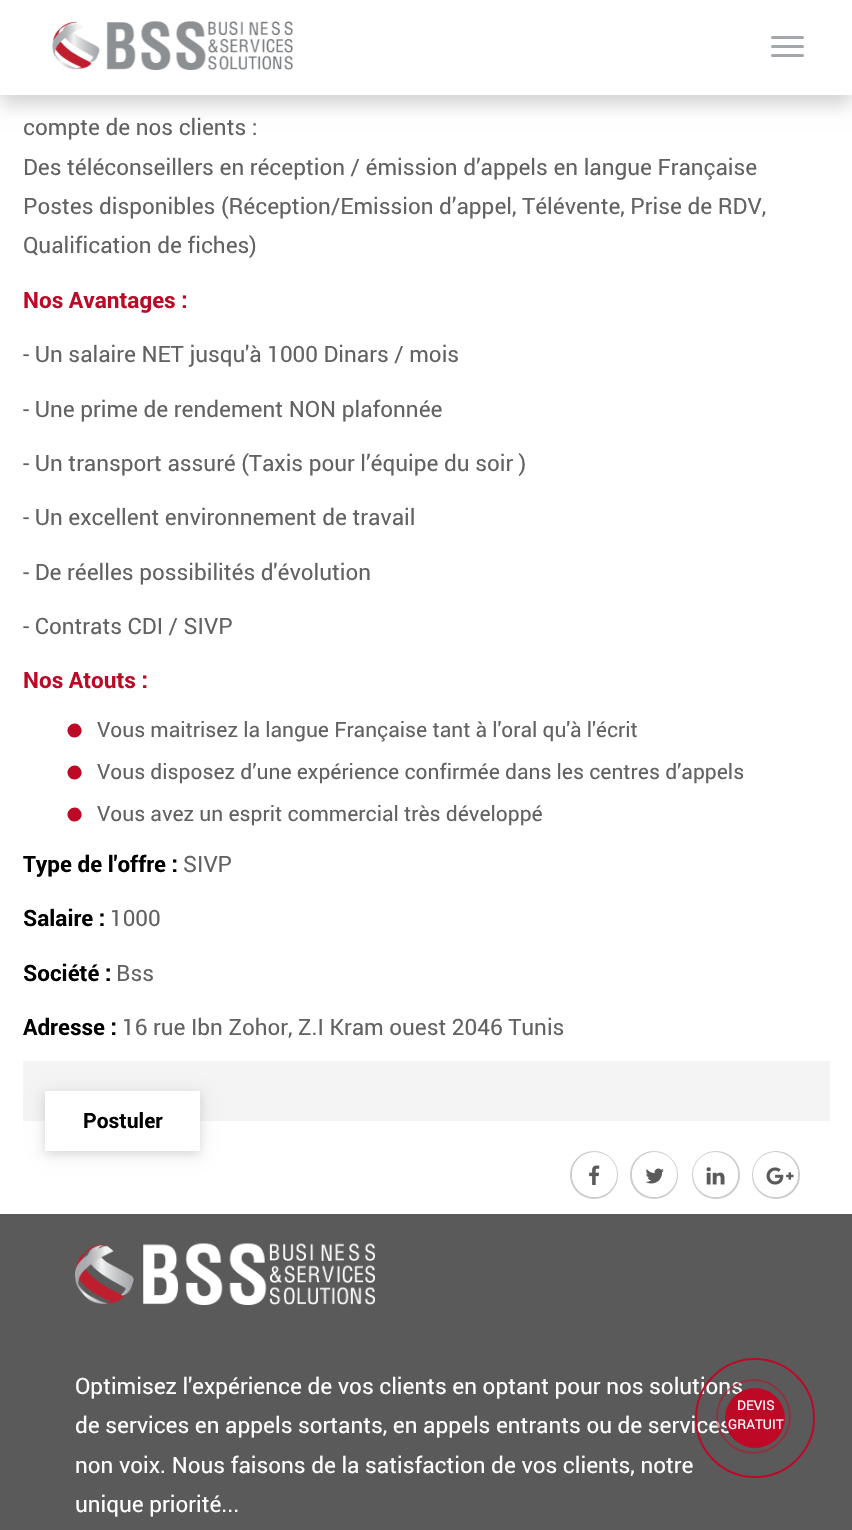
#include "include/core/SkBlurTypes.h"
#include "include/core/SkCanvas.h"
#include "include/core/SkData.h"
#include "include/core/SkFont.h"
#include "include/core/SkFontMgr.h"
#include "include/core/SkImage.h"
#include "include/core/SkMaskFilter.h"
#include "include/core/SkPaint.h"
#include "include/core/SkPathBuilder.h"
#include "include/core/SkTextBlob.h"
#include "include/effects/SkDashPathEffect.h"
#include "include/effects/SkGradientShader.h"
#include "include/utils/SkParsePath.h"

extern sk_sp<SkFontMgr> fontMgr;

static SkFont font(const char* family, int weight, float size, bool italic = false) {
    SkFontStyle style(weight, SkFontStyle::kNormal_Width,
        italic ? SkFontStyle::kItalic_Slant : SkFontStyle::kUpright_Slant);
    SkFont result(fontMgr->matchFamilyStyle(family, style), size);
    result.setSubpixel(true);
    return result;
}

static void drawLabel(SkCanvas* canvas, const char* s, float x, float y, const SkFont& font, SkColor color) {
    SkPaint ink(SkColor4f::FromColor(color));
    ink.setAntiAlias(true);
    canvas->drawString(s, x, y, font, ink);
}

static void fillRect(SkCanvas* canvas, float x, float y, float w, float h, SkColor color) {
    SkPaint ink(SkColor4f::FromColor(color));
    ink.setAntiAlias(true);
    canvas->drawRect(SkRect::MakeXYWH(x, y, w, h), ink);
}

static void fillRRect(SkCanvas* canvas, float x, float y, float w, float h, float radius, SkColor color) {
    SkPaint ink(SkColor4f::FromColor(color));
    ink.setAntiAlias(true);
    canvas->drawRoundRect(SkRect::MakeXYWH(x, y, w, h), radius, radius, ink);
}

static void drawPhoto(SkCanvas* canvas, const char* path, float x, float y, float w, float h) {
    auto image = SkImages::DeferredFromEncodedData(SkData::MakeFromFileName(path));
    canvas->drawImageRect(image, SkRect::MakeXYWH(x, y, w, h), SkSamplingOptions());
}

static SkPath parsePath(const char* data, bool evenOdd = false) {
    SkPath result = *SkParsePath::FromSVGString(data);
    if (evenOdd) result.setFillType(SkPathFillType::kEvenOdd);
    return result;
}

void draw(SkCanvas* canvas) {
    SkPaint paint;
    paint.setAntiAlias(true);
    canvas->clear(0xFFFFFFFF);
    paint.setColor(0x2E000000);
    paint.setMaskFilter(SkMaskFilter::MakeBlur(kNormal_SkBlurStyle, 9));
    canvas->drawRect(SkRect::MakeXYWH(0, 9, 852, 95), paint);
    paint.setMaskFilter(nullptr);
    fillRect(canvas, 0, 0, 852, 95, 0xFFFFFFFF);
    drawPhoto(canvas, "assets/img1.png", 52, 21, 241, 49);
    fillRRect(canvas, 771, 36, 33, 3, 1.5f, 0xFFA3A7AD);
    fillRRect(canvas, 771, 45, 33, 3, 1.5f, 0xFFA3A7AD);
    fillRRect(canvas, 771, 54, 33, 3, 1.5f, 0xFFA3A7AD);
    SkFont font1 = font("Roboto", 400, 22.5f);
    drawLabel(canvas, "compte de nos clients :", 23, 135, font1, 0xFF626262);
    drawLabel(canvas, "Des téléconseillers en réception / émission d’appels en langue Française", 23, 175, font1, 0xFF626262);
    drawLabel(canvas, "Postes disponibles (Réception/Emission d’appel, Télévente, Prise de RDV,", 23, 214, font1, 0xFF626262);
    drawLabel(canvas, "Qualification de fiches)", 23, 253, font1, 0xFF626262);
    SkFont font2 = font("Roboto", 700, 22.5f);
    drawLabel(canvas, "Nos Avantages :", 23, 308, font2, 0xFFBD0926);
    drawLabel(canvas, "- Un salaire NET jusqu'à 1000 Dinars / mois", 23, 362, font1, 0xFF626262);
    drawLabel(canvas, "- Une prime de rendement NON plafonnée", 23, 417, font1, 0xFF626262);
    drawLabel(canvas, "- Un transport assuré (Taxis pour l’équipe du soir )", 23, 471, font1, 0xFF626262);
    drawLabel(canvas, "- Un excellent environnement de travail", 23, 525, font1, 0xFF626262);
    drawLabel(canvas, "- De réelles possibilités d'évolution", 23, 580, font1, 0xFF626262);
    drawLabel(canvas, "- Contrats CDI / SIVP", 23, 634, font1, 0xFF626262);
    drawLabel(canvas, "Nos Atouts :", 23, 688, font2, 0xFFBD0926);
    paint.setColor(0xFFBD0926);
    canvas->drawPath(parsePath("M80.5 727C85.5 735 73 742 68.5 734C64 726 76 719 80.5 727ZM80.5 769C85.5 777 73 784 68.5 776C64 768 76 761 80.5 769Z"), paint);
    SkFont font3 = font("Roboto", 400, 21);
    drawLabel(canvas, "Vous maitrisez la langue Française tant à l'oral qu'à l'écrit", 97, 737, font3, 0xFF626262);
    drawLabel(canvas, "Vous disposez d’une expérience confirmée dans les centres d’appels", 97, 779, font3, 0xFF626262);
    canvas->drawPath(parsePath("M80.5 811C85.5 819 73 826 68.5 818C64 810 76 803 80.5 811Z"), paint);
    drawLabel(canvas, "Vous avez un esprit commercial très développé", 97, 821, font3, 0xFF626262);
    drawLabel(canvas, "Type de l'offre :", 23, 872, font2, 0xFF000000);
    drawLabel(canvas, "SIVP", 183, 872, font1, 0xFF626262);
    drawLabel(canvas, "Salaire :", 23, 926, font2, 0xFF000000);
    drawLabel(canvas, "1000", 110, 926, font1, 0xFF626262);
    drawLabel(canvas, "Société :", 23, 981, font2, 0xFF000000);
    drawLabel(canvas, "Bss", 116, 981, font1, 0xFF626262);
    drawLabel(canvas, "Adresse :", 23, 1035, font2, 0xFF000000);
    drawLabel(canvas, "16 rue Ibn Zohor, Z.I Kram ouest 2046 Tunis", 122, 1035, font1, 0xFF626262);
    fillRect(canvas, 23, 1061, 807, 60, 0xFFF4F4F4);
    paint.setColor(0x1A000000);
    paint.setMaskFilter(SkMaskFilter::MakeBlur(kNormal_SkBlurStyle, 7.5f));
    canvas->drawRect(SkRect::MakeXYWH(45, 1094, 155, 60), paint);
    paint.setMaskFilter(nullptr);
    paint.setColor(0x12000000);
    paint.setMaskFilter(SkMaskFilter::MakeBlur(kNormal_SkBlurStyle, 4));
    canvas->drawRect(SkRect::MakeXYWH(45, 1094, 155, 60), paint);
    paint.setMaskFilter(nullptr);
    fillRect(canvas, 45, 1091, 155, 60, 0xFFFFFFFF);
    SkFont font4 = font("Roboto", 700, 21);
    drawLabel(canvas, "Postuler", 83, 1128, font4, 0xFF000000);
    paint.setStroke(true);
    paint.setStrokeWidth(2);
    paint.setColor(0xFFCCCCCC);
    canvas->drawCircle(594, 1175, 23, paint);
    paint.setStroke(false);
    paint.setColor(0xFFFFFFFF);
    canvas->drawCircle(594.5f, 1174.5f, 21, paint);
    paint.setStroke(true);
    paint.setStrokeWidth(3);
    canvas->drawCircle(594.5f, 1174.5f, 21, paint);
    drawPhoto(canvas, "assets/img2.png", 589, 1165, 11, 20);
    paint.setStrokeWidth(2);
    paint.setColor(0xFFCCCCCC);
    canvas->drawCircle(654, 1175, 23, paint);
    paint.setStroke(false);
    paint.setColor(0xFFFFFFFF);
    canvas->drawCircle(654.5f, 1174.5f, 21, paint);
    paint.setStroke(true);
    paint.setStrokeWidth(3);
    canvas->drawCircle(654.5f, 1174.5f, 21, paint);
    drawPhoto(canvas, "assets/img3.png", 645, 1168, 19, 16);
    paint.setStrokeWidth(2);
    paint.setColor(0xFFCCCCCC);
    canvas->drawCircle(716, 1175, 23, paint);
    paint.setStroke(false);
    paint.setColor(0xFFFFFFFF);
    canvas->drawCircle(715.5f, 1174.5f, 21, paint);
    paint.setStroke(true);
    paint.setStrokeWidth(3);
    canvas->drawCircle(715.5f, 1174.5f, 21, paint);
    drawPhoto(canvas, "assets/img4.png", 706, 1167, 19, 18);
    paint.setStrokeWidth(2);
    paint.setColor(0xFFCCCCCC);
    canvas->drawCircle(776, 1175, 23, paint);
    paint.setStroke(false);
    paint.setColor(0xFFFFFFFF);
    canvas->drawCircle(775.5f, 1174.5f, 21, paint);
    paint.setStroke(true);
    paint.setStrokeWidth(3);
    canvas->drawCircle(775.5f, 1174.5f, 21, paint);
    drawPhoto(canvas, "assets/img5.png", 766, 1167, 28, 18);
    fillRect(canvas, 0, 1214, 852, 316, 0xFF5A5A5A);
    drawPhoto(canvas, "assets/img6.png", 75, 1243, 300, 62);
    drawLabel(canvas, "Optimisez l'expérience de vos clients en optant pour nos solutions", 75, 1394, font1, 0xFFFFFFFF);
    drawLabel(canvas, "de services en appels sortants, en appels entrants ou de services", 75, 1433, font1, 0xFFFFFFFF);
    drawLabel(canvas, "non voix. Nous faisons de la satisfaction de vos clients, notre", 75, 1473, font1, 0xFFFFFFFF);
    drawLabel(canvas, "unique priorité...", 75, 1512, font1, 0xFFFFFFFF);
    paint.setStrokeWidth(2);
    paint.setColor(0x80BD0926);
    canvas->drawCircle(753.5f, 1416.5f, 36.5f, paint);
    paint.setColor(0xFFBD0926);
    canvas->drawCircle(755, 1418, 59, paint);
    paint.setStroke(false);
    canvas->drawCircle(755, 1418, 30, paint);
    SkFont font5 = font("Roboto", 400, 13.5f);
    drawLabel(canvas, "DEVIS", 737, 1410, font5, 0xFFFFFFFF);
    drawLabel(canvas, "GRATUIT", 728, 1429, font5, 0xFFFFFFFF);
}
